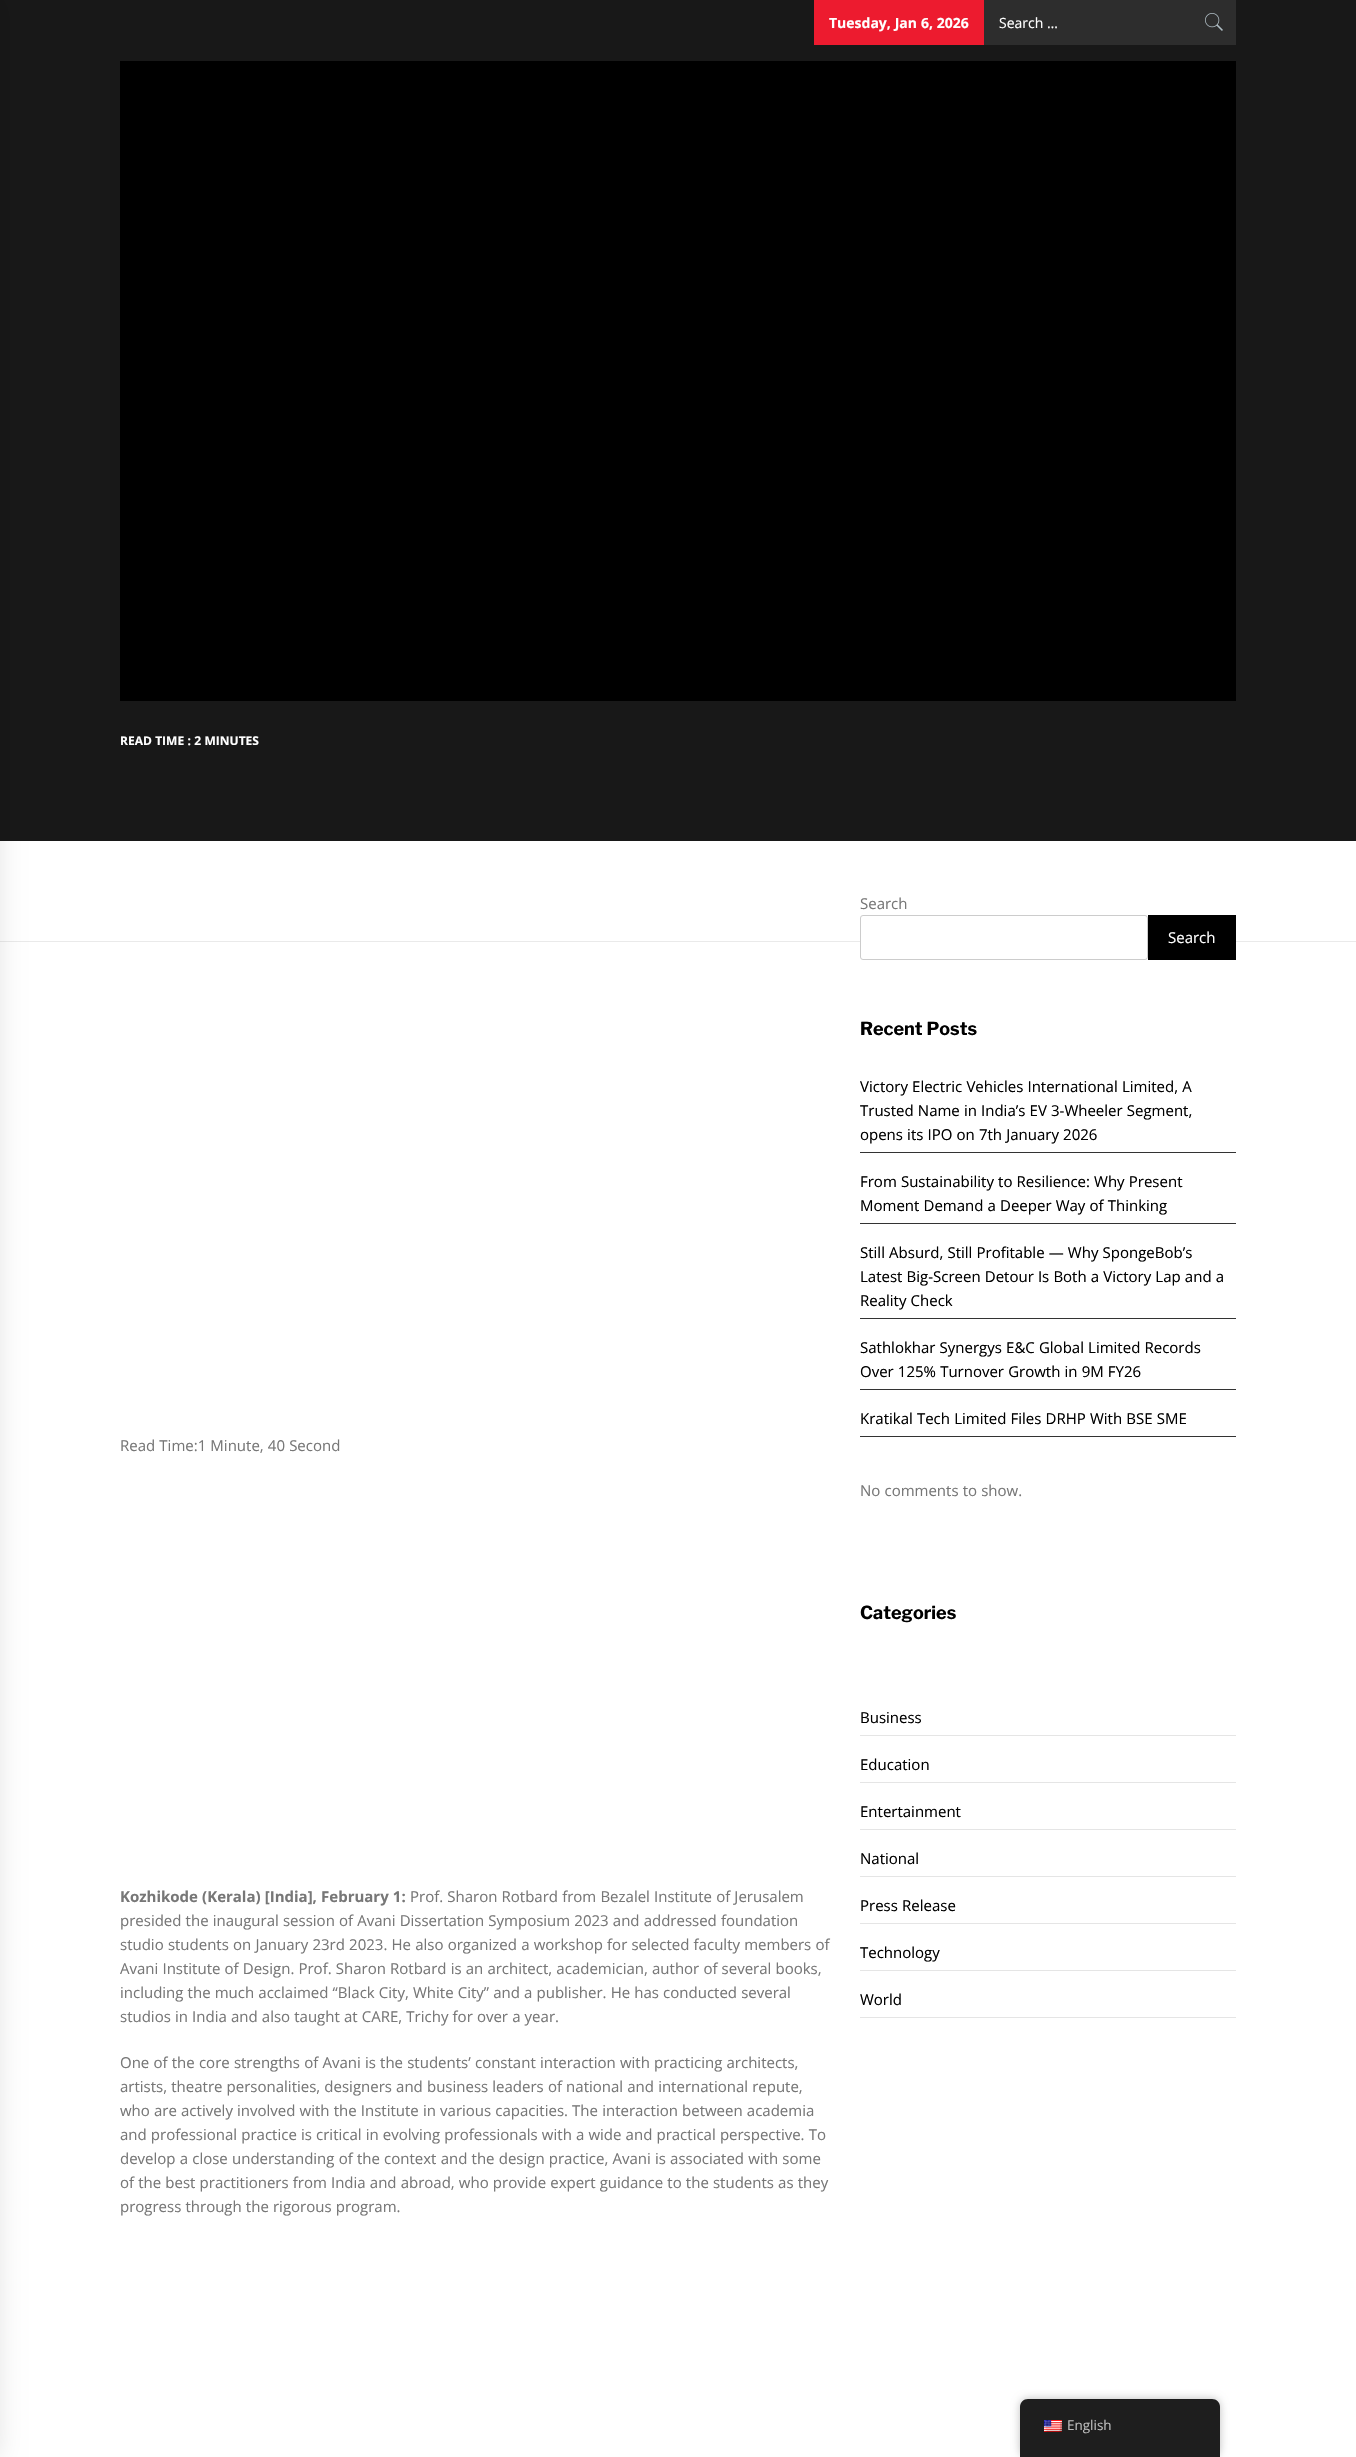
#include "include/core/SkBlurTypes.h"
#include "include/core/SkCanvas.h"
#include "include/core/SkData.h"
#include "include/core/SkFont.h"
#include "include/core/SkFontMgr.h"
#include "include/core/SkImage.h"
#include "include/core/SkMaskFilter.h"
#include "include/core/SkPaint.h"
#include "include/core/SkPathBuilder.h"
#include "include/core/SkTextBlob.h"
#include "include/effects/SkDashPathEffect.h"
#include "include/effects/SkGradientShader.h"
#include "include/utils/SkParsePath.h"

extern sk_sp<SkFontMgr> fontMgr;

static SkFont font(const char* family, int weight, float size, bool italic = false) {
    SkFontStyle style(weight, SkFontStyle::kNormal_Width,
        italic ? SkFontStyle::kItalic_Slant : SkFontStyle::kUpright_Slant);
    SkFont result(fontMgr->matchFamilyStyle(family, style), size);
    result.setSubpixel(true);
    return result;
}

static void drawLabel(SkCanvas* canvas, const char* s, float x, float y, const SkFont& font, SkColor color) {
    SkPaint ink(SkColor4f::FromColor(color));
    ink.setAntiAlias(true);
    canvas->drawString(s, x, y, font, ink);
}

static void drawTracked(SkCanvas* canvas, const char* s, float x, float y, const SkFont& font, const SkPaint& ink, float letter, float word) {
    std::vector<SkGlyphID> glyphs(font.countText(s, strlen(s), SkTextEncoding::kUTF8));
    std::vector<float> xs(glyphs.size());
    font.textToGlyphs(s, strlen(s), SkTextEncoding::kUTF8, glyphs);
    font.getXPos(glyphs, xs, x);
    float extra = 0;
    for (size_t i = 0; i < glyphs.size(); i++) {
        xs[i] += extra;
        extra += letter + word * (glyphs[i] == font.unicharToGlyph(' '));
    }
    canvas->drawTextBlob(SkTextBlob::MakeFromPosHGlyphs(glyphs, xs, y, font), 0, 0, ink);
}

static void fillRect(SkCanvas* canvas, float x, float y, float w, float h, SkColor color) {
    SkPaint ink(SkColor4f::FromColor(color));
    ink.setAntiAlias(true);
    canvas->drawRect(SkRect::MakeXYWH(x, y, w, h), ink);
}

static void drawPhoto(SkCanvas* canvas, const char* path, float x, float y, float w, float h) {
    auto image = SkImages::DeferredFromEncodedData(SkData::MakeFromFileName(path));
    canvas->drawImageRect(image, SkRect::MakeXYWH(x, y, w, h), SkSamplingOptions());
}

static SkPath parsePath(const char* data, bool evenOdd = false) {
    SkPath result = *SkParsePath::FromSVGString(data);
    if (evenOdd) result.setFillType(SkPathFillType::kEvenOdd);
    return result;
}

void draw(SkCanvas* canvas) {
    SkPaint paint;
    paint.setAntiAlias(true);
    canvas->clear(0xFFFFFFFF);
    fillRect(canvas, 0, 0, 1356, 841, 0xFF181818);
    fillRect(canvas, 0, 941, 1356, 1, 0xFFEAEAEA);
    paint.setColor(0x1A000000);
    paint.setMaskFilter(SkMaskFilter::MakeBlur(kNormal_SkBlurStyle, 12.5f));
    canvas->drawRect(SkRect::MakeXYWH(-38, 0, 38, 2457), paint);
    paint.setMaskFilter(nullptr);
    fillRect(canvas, 814, 0, 170, 45, 0xFFED1B2F);
    SkFont font1 = font("Open Sans", 700, 14);
    paint.setColor(0xFFFFFFFF);
    drawTracked(canvas, "Tuesday, Jan 6, 2026", 829, 28, font1, paint, 0, 0.25f);
    fillRect(canvas, 984, 0, 252, 45, 0xFF2D2D2D);
    SkFont font2 = font("Open Sans", 400, 14);
    drawLabel(canvas, "Search …", 999, 28, font2, 0xFFFFFFFF);
    drawPhoto(canvas, "assets/img1.png", 1205, 13, 18, 18);
    fillRect(canvas, 120, 61, 1116, 640, 0xFF000000);
    SkFont font3 = font("Open Sans", 700, 12);
    drawTracked(canvas, "READ TIME : 2 MINUTES", 120, 745, font3, paint, 0, 0.25f);
    SkFont font4 = font("Open Sans", 400, 15);
    paint.setColor(0xFF777777);
    drawTracked(canvas, "Read Time:1 Minute, 40 Second", 120, 1451, font4, paint, 0, 0.25f);
    SkFont font5 = font("Open Sans", 700, 15);
    drawTracked(canvas, "Kozhikode (Kerala) [India], February 1:", 120, 1902, font5, paint, 0, 0.25f);
    drawTracked(canvas, "Prof. Sharon Rotbard from Bezalel Institute of Jerusalem", 410, 1902, font4, paint, 0, 0.25f);
    drawTracked(canvas, "presided the inaugural session of Avani Dissertation Symposium 2023 and addressed foundation", 120, 1926, font4, paint, 0, 0.25f);
    drawTracked(canvas, "studio students on January 23rd 2023. He also organized a workshop for selected faculty members of", 120, 1950, font4, paint, 0, 0.3f);
    drawTracked(canvas, "Avani Institute of Design. Prof. Sharon Rotbard is an architect, academician, author of several books,", 120, 1974, font4, paint, 0, 0.25f);
    drawTracked(canvas, "including the much acclaimed “Black City, White City” and a publisher. He has conducted several", 120, 1998, font4, paint, 0, 0.25f);
    drawTracked(canvas, "studios in India and also taught at CARE, Trichy for over a year.", 120, 2022, font4, paint, 0, 0.25f);
    drawTracked(canvas, "One of the core strengths of Avani is the students’ constant interaction with practicing architects,", 120, 2068, font4, paint, 0, 0.3f);
    drawTracked(canvas, "artists, theatre personalities, designers and business leaders of national and international repute,", 120, 2092, font4, paint, 0, 0.25f);
    drawTracked(canvas, "who are actively involved with the Institute in various capacities. The interaction between academia", 120, 2116, font4, paint, 0, 0.25f);
    drawTracked(canvas, "and professional practice is critical in evolving professionals with a wide and practical perspective. To", 120, 2140, font4, paint, 0, 0.25f);
    drawTracked(canvas, "develop a close understanding of the context and the design practice, Avani is associated with some", 120, 2164, font4, paint, 0, 0.3f);
    drawTracked(canvas, "of the best practitioners from India and abroad, who provide expert guidance to the students as they", 120, 2188, font4, paint, 0, 0.25f);
    drawTracked(canvas, "progress through the rigorous program.", 120, 2212, font4, paint, 0, 0.25f);
    drawLabel(canvas, "Search", 860, 909, font4, 0xFF777777);
    paint.setColor(0xFFFFFFFF);
    canvas->drawRoundRect(SkRect::MakeXYWH(860.5f, 915.5f, 287, 44), 2.5f, 2.5f, paint);
    paint.setStroke(true);
    paint.setStrokeWidth(1);
    paint.setColor(0xFFCCCCCC);
    canvas->drawRoundRect(SkRect::MakeXYWH(860.5f, 915.5f, 287, 44), 2.5f, 2.5f, paint);
    fillRect(canvas, 1148, 915, 88, 45, 0xFF000000);
    drawLabel(canvas, "Search", 1168, 943, font4, 0xFFFFFFFF);
    SkFont font6 = font("Libre Franklin", 700, 18);
    paint.setStroke(false);
    paint.setColor(0xFF000000);
    drawTracked(canvas, "Recent Posts", 860, 1035, font6, paint, 0, 0.25f);
    fillRect(canvas, 860, 1152, 376, 1, 0xFF333333);
    drawTracked(canvas, "Victory Electric Vehicles International Limited, A", 860, 1092, font4, paint, 0, 0.25f);
    drawTracked(canvas, "Trusted Name in India’s EV 3-Wheeler Segment,", 860, 1116, font4, paint, 0, 0.25f);
    drawTracked(canvas, "opens its IPO on 7th January 2026", 860, 1140, font4, paint, 0, 0.25f);
    fillRect(canvas, 860, 1223, 376, 1, 0xFF333333);
    drawTracked(canvas, "From Sustainability to Resilience: Why Present", 860, 1187, font4, paint, 0, 0.25f);
    drawTracked(canvas, "Moment Demand a Deeper Way of Thinking", 860, 1211, font4, paint, 0, 0.25f);
    fillRect(canvas, 860, 1318, 376, 1, 0xFF333333);
    drawTracked(canvas, "Still Absurd, Still Profitable — Why SpongeBob’s", 860, 1258, font4, paint, 0, 0.25f);
    drawTracked(canvas, "Latest Big-Screen Detour Is Both a Victory Lap and a", 860, 1282, font4, paint, 0, 0.25f);
    drawTracked(canvas, "Reality Check", 860, 1306, font4, paint, 0, 0.25f);
    fillRect(canvas, 860, 1389, 376, 1, 0xFF333333);
    drawTracked(canvas, "Sathlokhar Synergys E&C Global Limited Records", 860, 1353, font4, paint, 0, 0.25f);
    drawTracked(canvas, "Over 125% Turnover Growth in 9M FY26", 860, 1377, font4, paint, 0, 0.25f);
    fillRect(canvas, 860, 1436, 376, 1, 0xFF333333);
    drawTracked(canvas, "Kratikal Tech Limited Files DRHP With BSE SME", 860, 1424, font4, paint, 0, 0.25f);
    paint.setColor(0xFF777777);
    drawTracked(canvas, "No comments to show.", 860, 1496, font4, paint, 0, 0.25f);
    drawLabel(canvas, "Categories", 860, 1619, font6, 0xFF000000);
    fillRect(canvas, 860, 1735, 376, 1, 0xFFE5E5E5);
    drawLabel(canvas, "Business", 860, 1723, font4, 0xFF000000);
    fillRect(canvas, 860, 1782, 376, 1, 0xFFE5E5E5);
    drawLabel(canvas, "Education", 860, 1770, font4, 0xFF000000);
    fillRect(canvas, 860, 1829, 376, 1, 0xFFE5E5E5);
    drawLabel(canvas, "Entertainment", 860, 1817, font4, 0xFF000000);
    fillRect(canvas, 860, 1876, 376, 1, 0xFFE5E5E5);
    drawLabel(canvas, "National", 860, 1864, font4, 0xFF000000);
    fillRect(canvas, 860, 1923, 376, 1, 0xFFE5E5E5);
    paint.setColor(0xFF000000);
    drawTracked(canvas, "Press Release", 860, 1911, font4, paint, 0, 0.25f);
    fillRect(canvas, 860, 1970, 376, 1, 0xFFE5E5E5);
    drawLabel(canvas, "Technology", 860, 1958, font4, 0xFF000000);
    fillRect(canvas, 860, 2017, 376, 1, 0xFFE5E5E5);
    drawLabel(canvas, "World", 860, 2005, font4, 0xFF000000);
    paint.setColor(0x40000000);
    paint.setMaskFilter(SkMaskFilter::MakeBlur(kNormal_SkBlurStyle, 4));
    canvas->drawRoundRect(SkRect::MakeXYWH(1020, 2399, 200, 58), 8, 8, paint);
    paint.setMaskFilter(nullptr);
    paint.setColor(0xFF1E1E1E);
    canvas->drawPath(parsePath("M1028 2399H1212C1216.5 2399 1220 2402.5 1220 2407V2457H1020V2407C1020 2402.5 1023.5 2399 1028 2399Z"), paint);
    drawPhoto(canvas, "assets/img2.png", 1044, 2420, 18, 12);
    SkFont font7 = font("Open Sans", 400, 13.5f);
    drawLabel(canvas, "English", 1067, 2430, font7, 0xFFBDBDBD);
}
